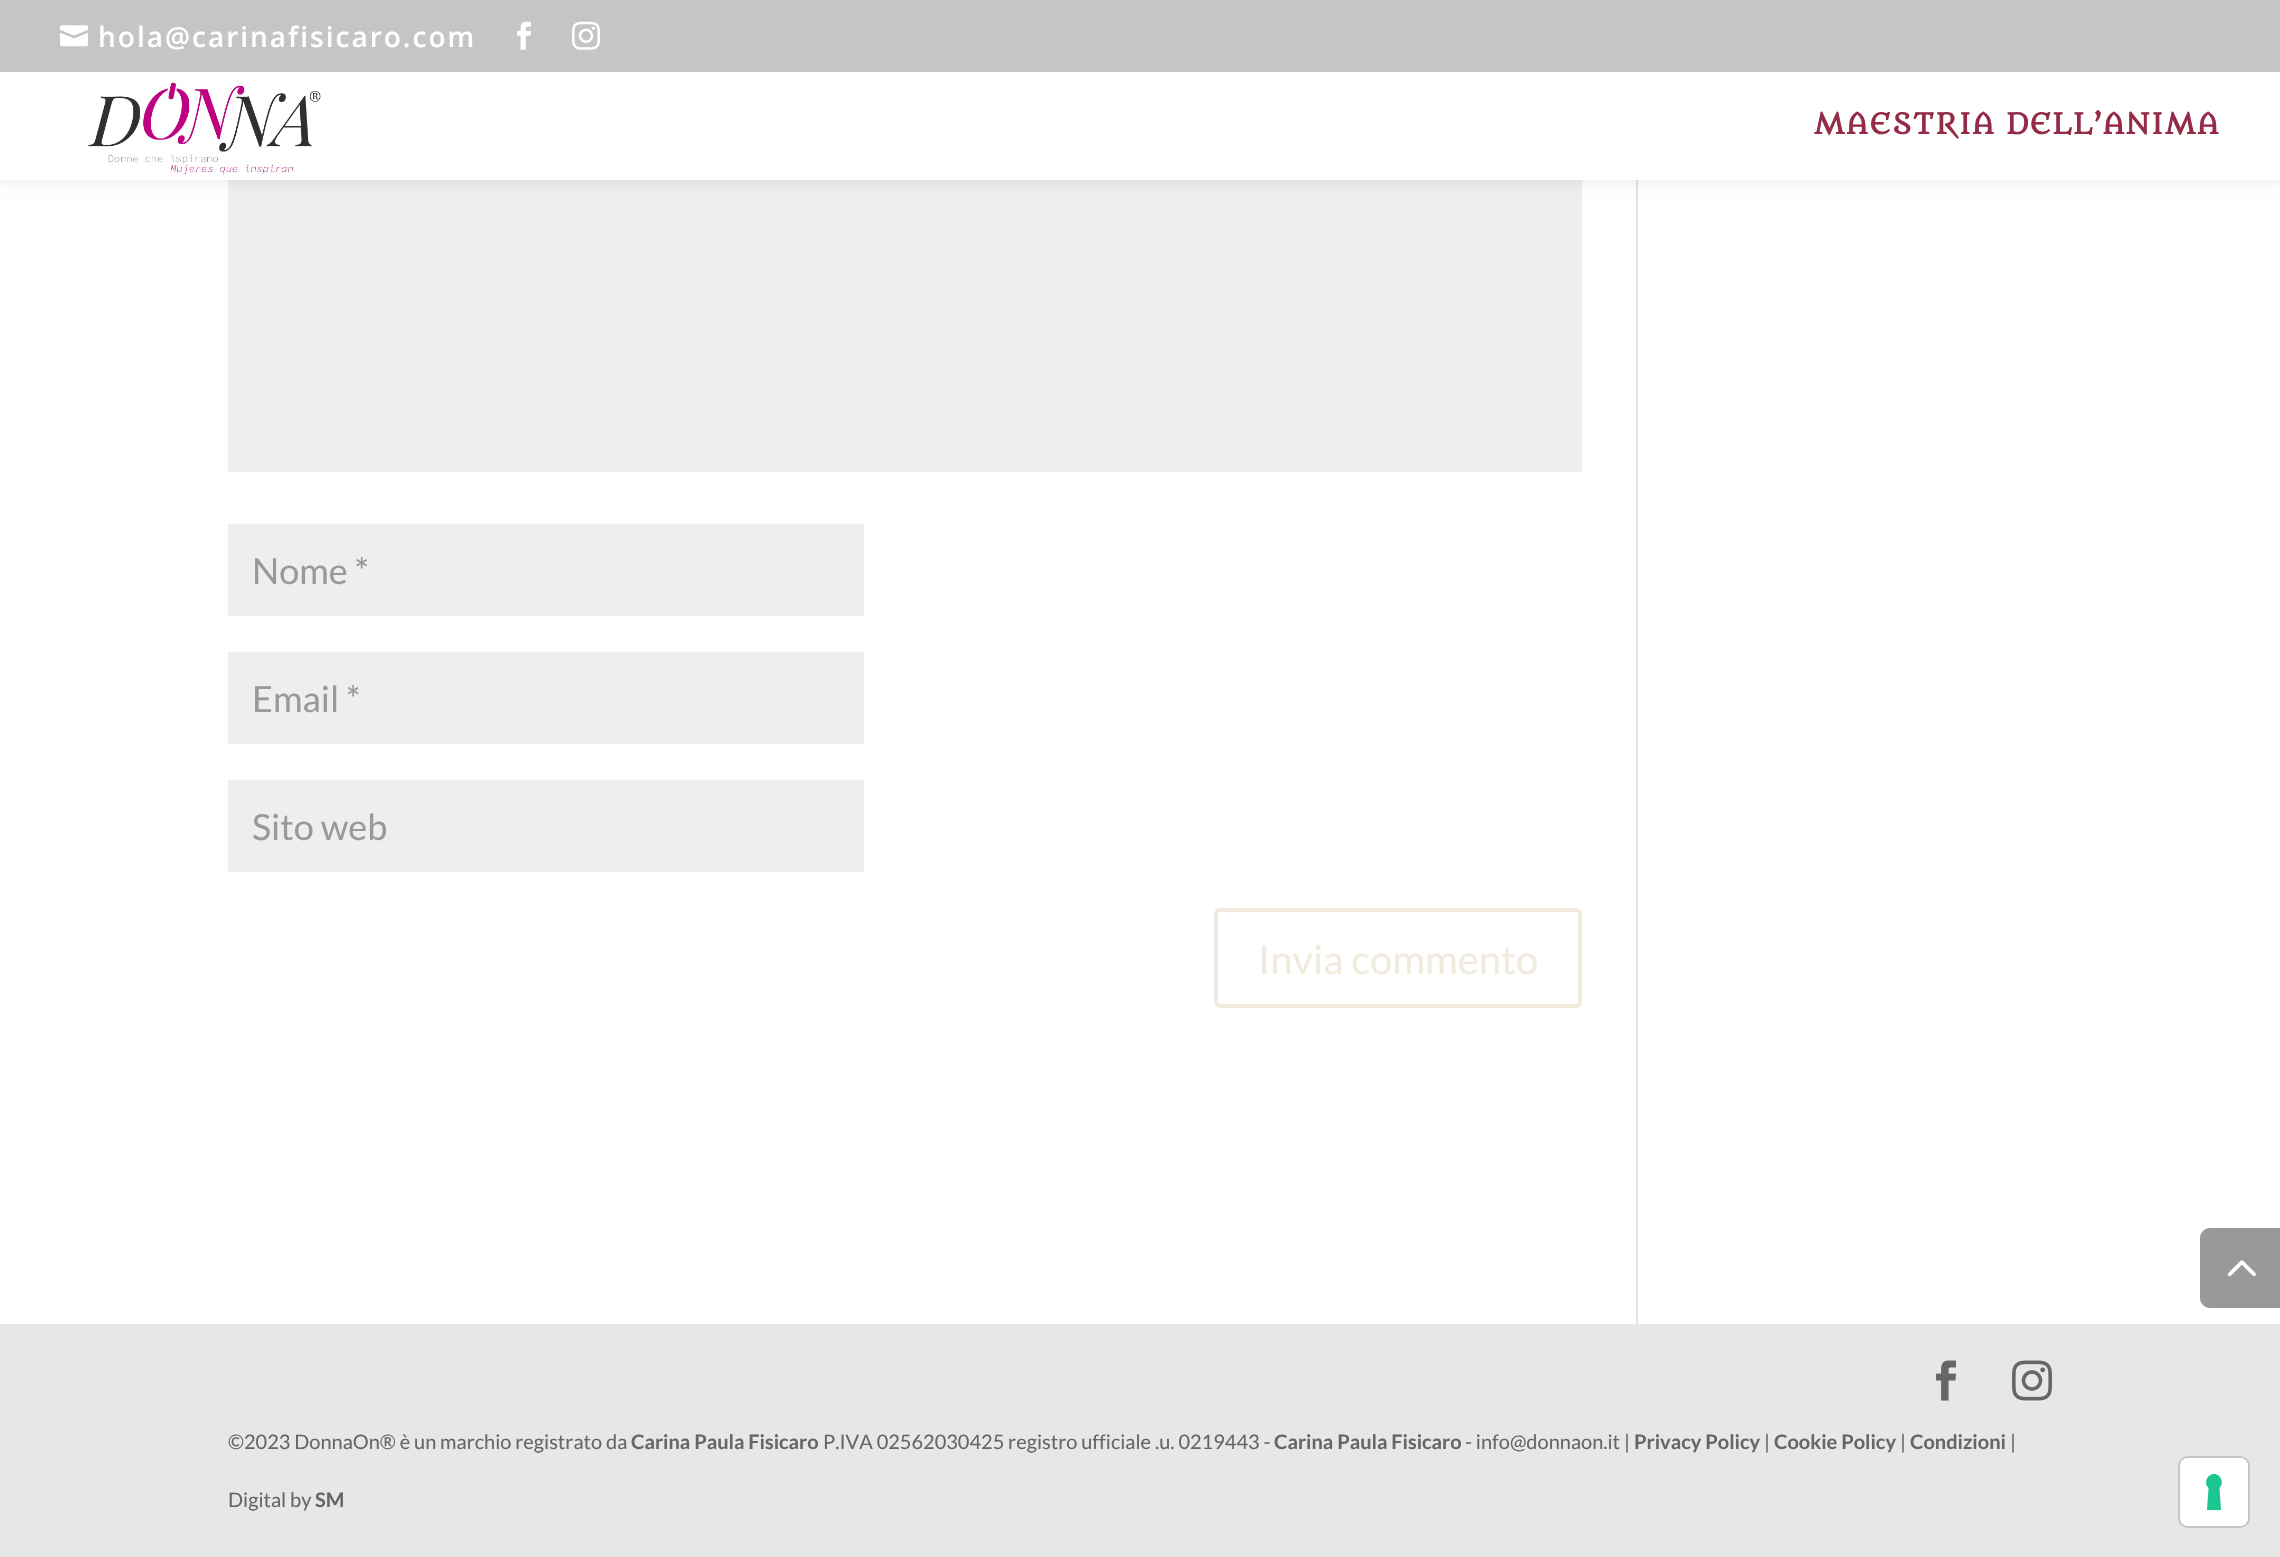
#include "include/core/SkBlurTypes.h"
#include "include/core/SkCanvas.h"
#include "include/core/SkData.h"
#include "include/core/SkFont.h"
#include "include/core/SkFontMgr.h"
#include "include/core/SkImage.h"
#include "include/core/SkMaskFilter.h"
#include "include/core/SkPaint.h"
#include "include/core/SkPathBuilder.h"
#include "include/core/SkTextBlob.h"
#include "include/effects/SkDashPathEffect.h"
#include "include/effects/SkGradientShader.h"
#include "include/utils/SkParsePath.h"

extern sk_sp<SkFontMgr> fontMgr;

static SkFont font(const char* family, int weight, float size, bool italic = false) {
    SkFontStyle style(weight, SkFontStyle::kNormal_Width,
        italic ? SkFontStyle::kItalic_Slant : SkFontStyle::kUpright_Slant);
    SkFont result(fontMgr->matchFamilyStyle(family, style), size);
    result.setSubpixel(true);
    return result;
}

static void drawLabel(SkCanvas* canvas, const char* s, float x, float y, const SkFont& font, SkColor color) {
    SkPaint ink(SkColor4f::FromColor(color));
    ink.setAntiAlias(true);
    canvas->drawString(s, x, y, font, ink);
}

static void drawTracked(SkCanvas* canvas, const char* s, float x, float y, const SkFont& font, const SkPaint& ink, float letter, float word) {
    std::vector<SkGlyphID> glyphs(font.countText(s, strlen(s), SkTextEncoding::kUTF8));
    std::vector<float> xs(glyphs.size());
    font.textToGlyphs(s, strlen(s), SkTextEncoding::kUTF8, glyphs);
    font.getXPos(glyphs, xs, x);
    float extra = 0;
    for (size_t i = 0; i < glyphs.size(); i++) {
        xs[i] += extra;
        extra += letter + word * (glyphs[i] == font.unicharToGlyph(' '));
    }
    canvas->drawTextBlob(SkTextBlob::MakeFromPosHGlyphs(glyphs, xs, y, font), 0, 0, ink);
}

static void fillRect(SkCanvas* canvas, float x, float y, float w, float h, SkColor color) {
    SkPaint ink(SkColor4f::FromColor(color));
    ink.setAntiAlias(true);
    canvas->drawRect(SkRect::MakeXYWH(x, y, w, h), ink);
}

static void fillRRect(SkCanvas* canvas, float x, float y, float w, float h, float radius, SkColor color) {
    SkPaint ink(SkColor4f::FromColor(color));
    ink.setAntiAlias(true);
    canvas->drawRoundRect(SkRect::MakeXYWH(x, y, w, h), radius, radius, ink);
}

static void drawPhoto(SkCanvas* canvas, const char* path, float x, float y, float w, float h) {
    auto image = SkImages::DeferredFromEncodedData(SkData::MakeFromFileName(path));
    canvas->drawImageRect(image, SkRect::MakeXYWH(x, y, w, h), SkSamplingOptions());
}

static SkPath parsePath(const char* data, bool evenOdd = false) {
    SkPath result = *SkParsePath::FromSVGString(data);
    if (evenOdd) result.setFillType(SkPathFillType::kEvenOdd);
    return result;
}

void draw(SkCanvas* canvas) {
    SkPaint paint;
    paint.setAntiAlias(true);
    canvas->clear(0xFFFFFFFF);
    fillRect(canvas, 228, 180, 1354, 292, 0xFFEEEEEE);
    fillRect(canvas, 1636, 0, 2, 1324, 0xFFE2E2E2);
    paint.setColor(0x1A000000);
    paint.setMaskFilter(SkMaskFilter::MakeBlur(kNormal_SkBlurStyle, 7));
    canvas->drawRect(SkRect::MakeXYWH(0, 72, 2280, 108), paint);
    paint.setMaskFilter(nullptr);
    fillRect(canvas, 0, 0, 2280, 72, 0xFAC4C4C4);
    drawPhoto(canvas, "assets/img1.png", 60, 25, 28, 22);
    SkFont font1 = font("Open Sans", 600, 28);
    paint.setColor(0xFFFFFFFF);
    drawTracked(canvas, "hola@carinafisicaro.com", 98, 47, font1, paint, 2, 0);
    drawPhoto(canvas, "assets/img2.png", 517, 21, 14, 29);
    drawPhoto(canvas, "assets/img3.png", 572, 21, 28, 29);
    fillRect(canvas, 0, 72, 2280, 108, 0xFFFFFFFF);
    drawPhoto(canvas, "assets/img4.png", 88, 80, 233, 96);
    SkFont font2 = font("Metamorphous", 700, 28);
    paint.setColor(0xFF942B47);
    drawTracked(canvas, "MAESTRIA DELL’ANIMA", 1814, 134, font2, paint, 2, 0);
    fillRect(canvas, 228, 524, 636, 92, 0xFFEEEEEE);
    SkFont font3 = font("Lato", 400, 36);
    drawLabel(canvas, "Nome *", 252, 584, font3, 0xFF999999);
    fillRect(canvas, 228, 652, 636, 92, 0xFFEEEEEE);
    drawLabel(canvas, "Email *", 252, 712, font3, 0xFF999999);
    fillRect(canvas, 228, 780, 636, 92, 0xFFEEEEEE);
    drawLabel(canvas, "Sito web", 252, 840, font3, 0xFF999999);
    paint.setStroke(true);
    paint.setStrokeWidth(4);
    paint.setColor(0xFFF0EBDD);
    canvas->drawRoundRect(SkRect::MakeXYWH(1216, 910, 364, 96), 4, 4, paint);
    SkFont font4 = font("Lato", 400, 40);
    drawLabel(canvas, "Invia commento", 1258, 974, font4, 0xFFF0EBDD);
    paint.setStroke(false);
    paint.setColor(0xFF999999);
    canvas->drawPath(parsePath("M2210 1228H2280V1308H2210C2204.5 1308 2200 1303.5 2200 1298V1238C2200 1232.5 2204.5 1228 2210 1228Z"), paint);
    drawPhoto(canvas, "assets/img5.png", 2227, 1260, 29, 17);
    fillRect(canvas, 0, 1324, 2280, 233, 0xFFE7E7E7);
    drawPhoto(canvas, "assets/img6.png", 1936, 1360, 21, 41);
    drawPhoto(canvas, "assets/img7.png", 2012, 1360, 40, 41);
    SkFont font5 = font("Lato", 400, 20);
    drawLabel(canvas, "©2023 DonnaOn® è un marchio registrato da", 228, 1449, font5, 0xFF666666);
    SkFont font6 = font("Lato", 700, 20);
    drawLabel(canvas, "Carina Paula Fisicaro", 631, 1449, font6, 0xFF666666);
    drawLabel(canvas, "P.IVA 02562030425 registro ufficiale .u. 0219443 -", 823, 1449, font5, 0xFF666666);
    drawLabel(canvas, "Carina Paula Fisicaro", 1274, 1449, font6, 0xFF666666);
    drawLabel(canvas, "- info@donnaon.it |", 1465, 1449, font5, 0xFF666666);
    drawLabel(canvas, "Privacy Policy", 1634, 1449, font6, 0xFF666666);
    drawLabel(canvas, "|", 1764, 1449, font5, 0xFF666666);
    drawLabel(canvas, "Cookie Policy", 1774, 1449, font6, 0xFF666666);
    drawLabel(canvas, "|", 1900, 1449, font5, 0xFF666666);
    drawLabel(canvas, "Condizioni", 1910, 1449, font6, 0xFF666666);
    drawLabel(canvas, "|", 2010, 1449, font5, 0xFF666666);
    drawLabel(canvas, "Digital by", 228, 1507, font5, 0xFF666666);
    drawLabel(canvas, "SM", 315, 1507, font6, 0xFF666666);
    paint.setStroke(true);
    paint.setStrokeWidth(2);
    paint.setColor(0xFFC4C4C4);
    canvas->drawRoundRect(SkRect::MakeXYWH(2179, 1457, 70, 70), 9, 9, paint);
    fillRRect(canvas, 2180, 1458, 68, 68, 8, 0xFFFFFFFF);
    paint.setStroke(false);
    paint.setColor(0xFF1CC691);
    canvas->drawPath(parsePath("M2214 1474C2221 1474 2224.5 1483.5 2219.5 1488L2221 1510H2207L2208.5 1488C2203.5 1483.5 2207 1474 2214 1474Z", true), paint);
}
